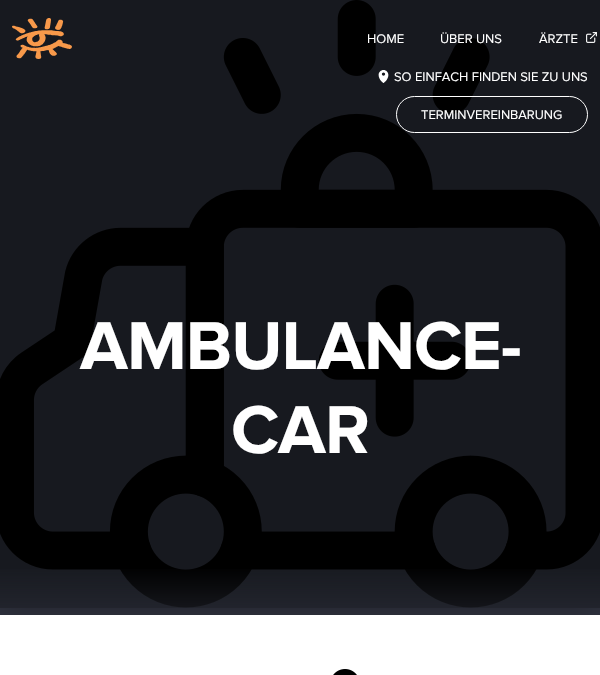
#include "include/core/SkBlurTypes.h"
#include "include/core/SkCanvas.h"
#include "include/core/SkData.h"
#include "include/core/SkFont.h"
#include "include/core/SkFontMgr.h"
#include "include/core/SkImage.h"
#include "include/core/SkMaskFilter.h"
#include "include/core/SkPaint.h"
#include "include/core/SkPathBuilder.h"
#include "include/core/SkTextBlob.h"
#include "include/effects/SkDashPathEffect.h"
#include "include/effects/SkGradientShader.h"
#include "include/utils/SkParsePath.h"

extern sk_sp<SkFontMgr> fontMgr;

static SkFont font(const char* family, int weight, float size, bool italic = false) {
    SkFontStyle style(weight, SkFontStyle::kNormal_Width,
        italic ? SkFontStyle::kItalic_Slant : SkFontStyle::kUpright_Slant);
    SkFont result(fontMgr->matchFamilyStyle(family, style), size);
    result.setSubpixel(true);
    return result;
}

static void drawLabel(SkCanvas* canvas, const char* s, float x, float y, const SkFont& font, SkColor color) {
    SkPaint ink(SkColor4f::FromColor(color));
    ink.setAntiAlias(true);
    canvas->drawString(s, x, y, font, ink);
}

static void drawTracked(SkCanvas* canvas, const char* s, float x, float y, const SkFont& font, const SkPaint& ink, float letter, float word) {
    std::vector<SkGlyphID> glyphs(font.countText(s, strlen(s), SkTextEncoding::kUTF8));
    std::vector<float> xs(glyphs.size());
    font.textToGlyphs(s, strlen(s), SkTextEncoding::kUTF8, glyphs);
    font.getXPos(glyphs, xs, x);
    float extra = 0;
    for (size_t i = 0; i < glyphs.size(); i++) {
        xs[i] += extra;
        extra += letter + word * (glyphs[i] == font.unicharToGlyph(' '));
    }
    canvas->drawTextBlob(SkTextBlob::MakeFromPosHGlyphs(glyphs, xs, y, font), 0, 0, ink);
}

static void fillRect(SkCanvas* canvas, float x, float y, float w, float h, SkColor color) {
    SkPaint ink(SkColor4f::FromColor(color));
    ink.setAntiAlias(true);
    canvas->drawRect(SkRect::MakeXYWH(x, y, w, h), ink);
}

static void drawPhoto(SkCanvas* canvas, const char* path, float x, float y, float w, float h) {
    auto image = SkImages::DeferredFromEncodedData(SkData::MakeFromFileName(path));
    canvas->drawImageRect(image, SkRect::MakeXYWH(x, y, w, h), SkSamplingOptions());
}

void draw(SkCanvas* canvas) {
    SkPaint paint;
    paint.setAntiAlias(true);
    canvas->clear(0xFF2E313D);
    fillRect(canvas, 0, 0, 600, 608, 0xFF17191F);
    canvas->save();
    canvas->clipRect(SkRect::MakeXYWH(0, 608, 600, 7));
    paint.setColor(0x80000000);
    paint.setMaskFilter(SkMaskFilter::MakeBlur(kNormal_SkBlurStyle, 15));
    canvas->drawRect(SkRect::MakeXYWH(0, 0, 600, 608), paint);
    paint.setMaskFilter(nullptr);
    canvas->restore();
    drawPhoto(canvas, "assets/img4.png", 0, 0, 600, 608);
    drawPhoto(canvas, "assets/img1.png", 12, 18, 60, 41);
    SkFont font1 = font("Proxima Nova", 400, 13);
    drawLabel(canvas, "HOME", 367, 43, font1, 0xFFFFFFFF);
    drawLabel(canvas, "ÜBER UNS", 440, 43, font1, 0xFFFFFFFF);
    drawLabel(canvas, "ÄRZTE", 539, 43, font1, 0xFFFFFFFF);
    drawPhoto(canvas, "assets/img2.png", 586, 32, 11, 11);
    drawPhoto(canvas, "assets/img3.png", 378, 70, 11, 13);
    drawLabel(canvas, "SO EINFACH FINDEN SIE ZU UNS", 394, 81, font1, 0xFFFFFFFF);
    paint.setStroke(true);
    paint.setStrokeWidth(1);
    paint.setColor(0xFFFFFFFF);
    canvas->drawRoundRect(SkRect::MakeXYWH(396.5f, 96.5f, 191, 36), 18, 18, paint);
    drawLabel(canvas, "TERMINVEREINBARUNG", 421, 119, font1, 0xFFFFFFFF);
    SkFont font2 = font("Proxima Nova", 700, 70);
    paint.setStroke(false);
    drawTracked(canvas, "AMBULANCE-", 80, 369, font2, paint, -1, 0);
    drawTracked(canvas, "CAR", 231, 453, font2, paint, -1, 0);
    fillRect(canvas, 0, 615, 600, 60, 0xFFFFFFFF);
    {
        const SkColor colors[] = {0x802E313D, 0x002E313D};
        const float stops[] = {0, 1};
        const SkPoint ends[] = {{300, 615}, {300, 565}};
        paint.setShader(SkGradientShader::MakeLinear(ends, colors, stops, 2, SkTileMode::kClamp));
        paint.setAlpha(255);
    }
    canvas->drawRect(SkRect::MakeXYWH(0, 569, 600, 46), paint);
    drawPhoto(canvas, "assets/img5.png", 333, 669, 24, 6);
}
